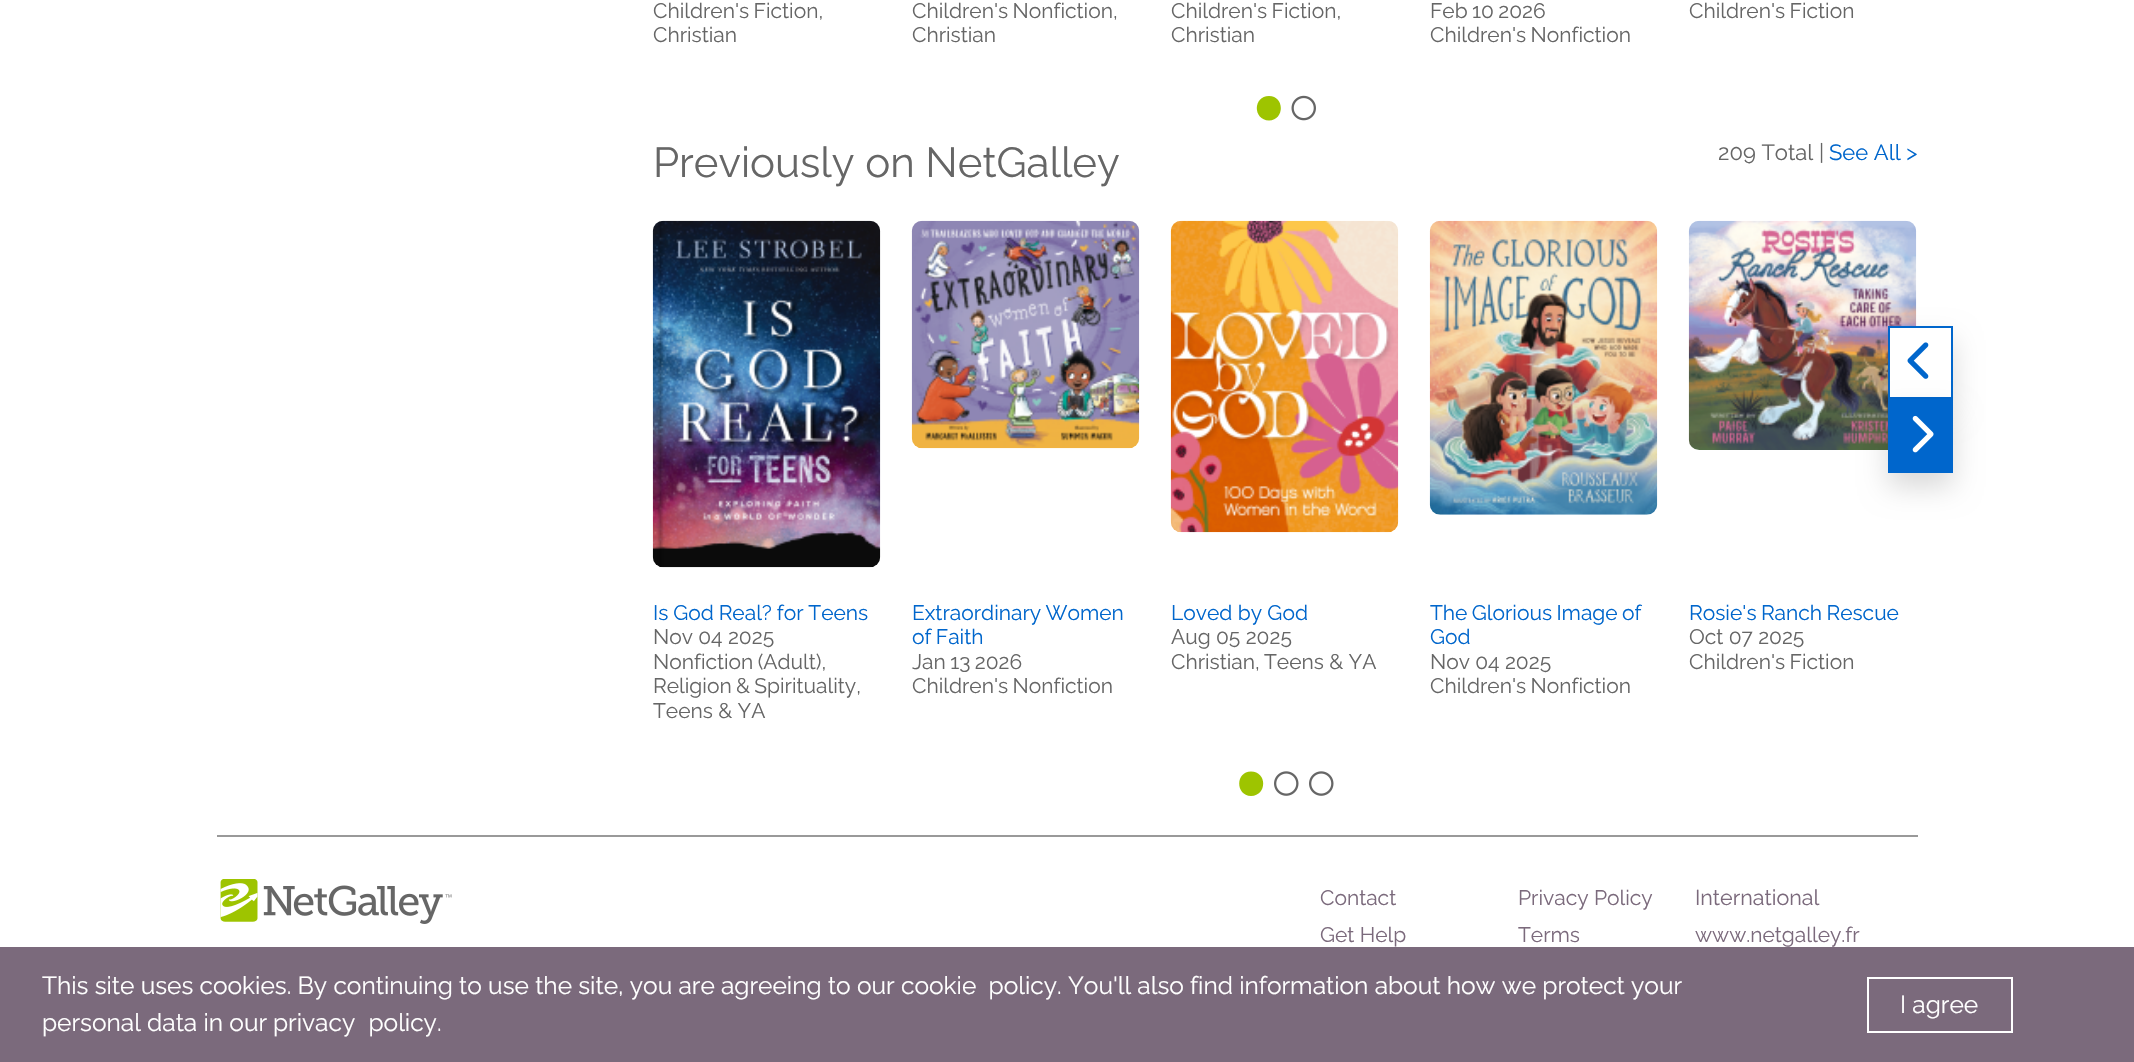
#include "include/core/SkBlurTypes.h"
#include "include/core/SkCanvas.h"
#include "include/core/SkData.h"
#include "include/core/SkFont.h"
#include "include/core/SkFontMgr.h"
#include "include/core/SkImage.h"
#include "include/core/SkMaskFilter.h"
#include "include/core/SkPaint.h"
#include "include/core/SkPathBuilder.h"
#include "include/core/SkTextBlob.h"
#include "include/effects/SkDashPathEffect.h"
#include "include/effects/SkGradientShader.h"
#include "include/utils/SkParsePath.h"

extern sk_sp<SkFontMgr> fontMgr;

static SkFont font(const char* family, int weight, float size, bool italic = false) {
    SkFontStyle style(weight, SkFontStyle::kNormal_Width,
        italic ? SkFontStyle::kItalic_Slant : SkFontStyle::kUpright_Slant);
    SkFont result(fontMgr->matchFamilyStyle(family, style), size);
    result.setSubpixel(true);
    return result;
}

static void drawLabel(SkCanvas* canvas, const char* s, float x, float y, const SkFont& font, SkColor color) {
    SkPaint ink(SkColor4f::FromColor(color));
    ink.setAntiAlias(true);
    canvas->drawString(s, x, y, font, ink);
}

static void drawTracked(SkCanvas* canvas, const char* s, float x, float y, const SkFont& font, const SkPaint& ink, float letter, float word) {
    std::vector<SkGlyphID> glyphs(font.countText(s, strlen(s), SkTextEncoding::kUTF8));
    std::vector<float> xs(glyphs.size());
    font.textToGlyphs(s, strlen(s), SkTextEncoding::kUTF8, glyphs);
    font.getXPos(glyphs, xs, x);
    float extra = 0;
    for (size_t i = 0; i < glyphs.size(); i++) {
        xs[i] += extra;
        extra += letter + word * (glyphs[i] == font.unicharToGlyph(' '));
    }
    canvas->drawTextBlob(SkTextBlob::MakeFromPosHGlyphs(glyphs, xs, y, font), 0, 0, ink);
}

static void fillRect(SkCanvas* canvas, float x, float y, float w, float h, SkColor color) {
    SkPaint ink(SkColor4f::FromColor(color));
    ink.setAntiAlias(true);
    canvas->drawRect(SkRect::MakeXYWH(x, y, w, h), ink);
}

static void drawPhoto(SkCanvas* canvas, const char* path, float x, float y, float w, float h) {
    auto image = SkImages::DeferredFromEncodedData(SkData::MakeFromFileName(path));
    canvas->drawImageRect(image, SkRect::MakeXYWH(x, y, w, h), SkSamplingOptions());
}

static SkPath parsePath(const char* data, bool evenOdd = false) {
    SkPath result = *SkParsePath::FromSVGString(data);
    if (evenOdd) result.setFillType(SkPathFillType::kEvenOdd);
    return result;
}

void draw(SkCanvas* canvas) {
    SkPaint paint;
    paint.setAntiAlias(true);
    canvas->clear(0xFFFFFFFF);
    SkFont font1 = font("Raleway", 400, 21);
    paint.setColor(0xFF666666);
    drawTracked(canvas, "Children's Fiction,", 653, 18, font1, paint, 0, -1);
    drawLabel(canvas, "Christian", 653, 42, font1, 0xFF666666);
    drawTracked(canvas, "Children's Nonfiction,", 912, 18, font1, paint, 0, -1);
    drawLabel(canvas, "Christian", 912, 42, font1, 0xFF666666);
    drawTracked(canvas, "Children's Fiction,", 1171, 18, font1, paint, 0, -1);
    drawLabel(canvas, "Christian", 1171, 42, font1, 0xFF666666);
    drawTracked(canvas, "Feb 10 2026", 1430, 18, font1, paint, 0, -1);
    drawTracked(canvas, "Children's Nonfiction", 1430, 42, font1, paint, 0, -1);
    drawTracked(canvas, "Children's Fiction", 1689, 18, font1, paint, 0, -1);
    paint.setColor(0xFF9EC400);
    canvas->drawPath(parsePath("M1269 120.5C1285 120 1284.5 96 1269 96C1253 96 1252.5 120 1269 120.5Z"), paint);
    drawPhoto(canvas, "assets/img1.png", 1291, 95, 25, 26);
    SkFont font2 = font("Raleway", 400, 42);
    drawLabel(canvas, "Previously on NetGalley", 653, 177, font2, 0xFF666666);
    SkFont font3 = font("Raleway", 400, 22);
    drawLabel(canvas, "209 Total |", 1718, 160, font3, 0xFF666666);
    drawLabel(canvas, "See All >", 1829, 160, font3, 0xFF0066CC);
    drawPhoto(canvas, "assets/img8.png", 1688, 220, 229, 230);
    paint.setColor(0x26000000);
    paint.setMaskFilter(SkMaskFilter::MakeBlur(kNormal_SkBlurStyle, 14));
    canvas->drawRect(SkRect::MakeXYWH(1888, 340, 65, 73), paint);
    paint.setMaskFilter(nullptr);
    paint.setColor(0xFFFFFFFF);
    canvas->drawRect(SkRect::MakeXYWH(1889, 327, 63, 71), paint);
    paint.setStroke(true);
    paint.setStrokeWidth(2);
    paint.setColor(0xFF0066CC);
    canvas->drawRect(SkRect::MakeXYWH(1889, 327, 63, 71), paint);
    drawPhoto(canvas, "assets/img2.png", 1907, 342, 22, 37);
    paint.setStroke(false);
    paint.setColor(0x26000000);
    paint.setMaskFilter(SkMaskFilter::MakeBlur(kNormal_SkBlurStyle, 14));
    canvas->drawRect(SkRect::MakeXYWH(1888, 413, 65, 74), paint);
    paint.setMaskFilter(nullptr);
    fillRect(canvas, 1888, 399, 65, 74, 0xFF0066CC);
    drawPhoto(canvas, "assets/img3.png", 1912, 415, 22, 38);
    drawPhoto(canvas, "assets/img4.png", 652, 220, 229, 348);
    paint.setColor(0xFF0066CC);
    drawTracked(canvas, "Is God Real? for Teens", 653, 620, font1, paint, 0, -0.5f);
    drawLabel(canvas, "Nov 04 2025", 653, 644, font1, 0xFF666666);
    paint.setColor(0xFF666666);
    drawTracked(canvas, "Nonfiction (Adult),", 653, 669, font1, paint, 0, -1);
    drawTracked(canvas, "Religion & Spirituality,", 653, 693, font1, paint, 0, -1);
    drawLabel(canvas, "Teens & YA", 653, 718, font1, 0xFF666666);
    drawPhoto(canvas, "assets/img5.png", 911, 220, 229, 229);
    paint.setColor(0xFF0066CC);
    drawTracked(canvas, "Extraordinary Women", 912, 620, font1, paint, 0, -1);
    drawTracked(canvas, "of Faith", 912, 644, font1, paint, 0, -1);
    paint.setColor(0xFF666666);
    drawTracked(canvas, "Jan 13 2026", 912, 669, font1, paint, 0, -1);
    drawTracked(canvas, "Children's Nonfiction", 912, 693, font1, paint, 0, -1);
    drawPhoto(canvas, "assets/img6.png", 1170, 220, 229, 313);
    drawLabel(canvas, "Loved by God", 1171, 620, font1, 0xFF0066CC);
    drawLabel(canvas, "Aug 05 2025", 1171, 644, font1, 0xFF666666);
    drawLabel(canvas, "Christian,", 1171, 669, font1, 0xFF666666);
    drawLabel(canvas, "Teens & YA", 1264, 669, font1, 0xFF666666);
    drawPhoto(canvas, "assets/img7.png", 1429, 220, 229, 295);
    paint.setColor(0xFF0066CC);
    drawTracked(canvas, "The Glorious Image of", 1430, 620, font1, paint, 0, -1);
    drawLabel(canvas, "God", 1430, 644, font1, 0xFF0066CC);
    drawLabel(canvas, "Nov 04 2025", 1430, 669, font1, 0xFF666666);
    paint.setColor(0xFF666666);
    drawTracked(canvas, "Children's Nonfiction", 1430, 693, font1, paint, 0, -1);
    paint.setColor(0xFF0066CC);
    drawTracked(canvas, "Rosie's Ranch Rescue", 1689, 620, font1, paint, 0, -1);
    drawLabel(canvas, "Oct 07 2025", 1689, 644, font1, 0xFF666666);
    paint.setColor(0xFF666666);
    drawTracked(canvas, "Children's Fiction", 1689, 669, font1, paint, 0, -1);
    paint.setColor(0xFF9EC400);
    canvas->drawPath(parsePath("M1251 796C1267.5 795.5 1267 771.5 1251 771.5C1235.5 771.5 1235 795.5 1251 796Z"), paint);
    drawPhoto(canvas, "assets/img9.png", 1274, 771, 25, 25);
    drawPhoto(canvas, "assets/img9.png", 1309, 771, 25, 25);
    fillRect(canvas, 217, 835, 1701, 2, 0xFF999999);
    drawPhoto(canvas, "assets/img10.png", 220, 879, 232, 45);
    drawLabel(canvas, "Contact", 1320, 905, font1, 0xFF7B6A7C);
    drawLabel(canvas, "Get Help", 1320, 942, font1, 0xFF7B6A7C);
    drawLabel(canvas, "Privacy Policy", 1518, 905, font1, 0xFF7B6A7C);
    drawLabel(canvas, "Terms", 1518, 942, font1, 0xFF7B6A7C);
    SkFont font4 = font("Raleway", 400, 21.5f);
    drawLabel(canvas, "International", 1695, 905, font4, 0xFF7B6A7C);
    drawLabel(canvas, "www.netgalley.fr", 1695, 942, font1, 0xFF7B6A7C);
    fillRect(canvas, 0, 947, 2134, 115, 0xFF7B6A7C);
    SkFont font5 = font("Raleway", 400, 24.5f);
    drawLabel(canvas, "This site uses cookies. By continuing to use the site, you are agreeing to our", 42, 994, font5, 0xFFFFFFFF);
    paint.setColor(0xFFFFFFFF);
    drawTracked(canvas, "cookie policy", 901, 994, font5, paint, 0, 6);
    drawLabel(canvas, ". You'll also find information about how we protect your", 1057, 994, font5, 0xFFFFFFFF);
    drawLabel(canvas, "personal data in our", 42, 1031, font5, 0xFFFFFFFF);
    drawTracked(canvas, "privacy policy", 273, 1031, font5, paint, 0, 7);
    drawLabel(canvas, ".", 437, 1031, font5, 0xFFFFFFFF);
    paint.setStroke(true);
    canvas->drawRect(SkRect::MakeXYWH(1868, 978, 144, 54), paint);
    drawLabel(canvas, "I agree", 1900, 1013, font5, 0xFFFFFFFF);
}
